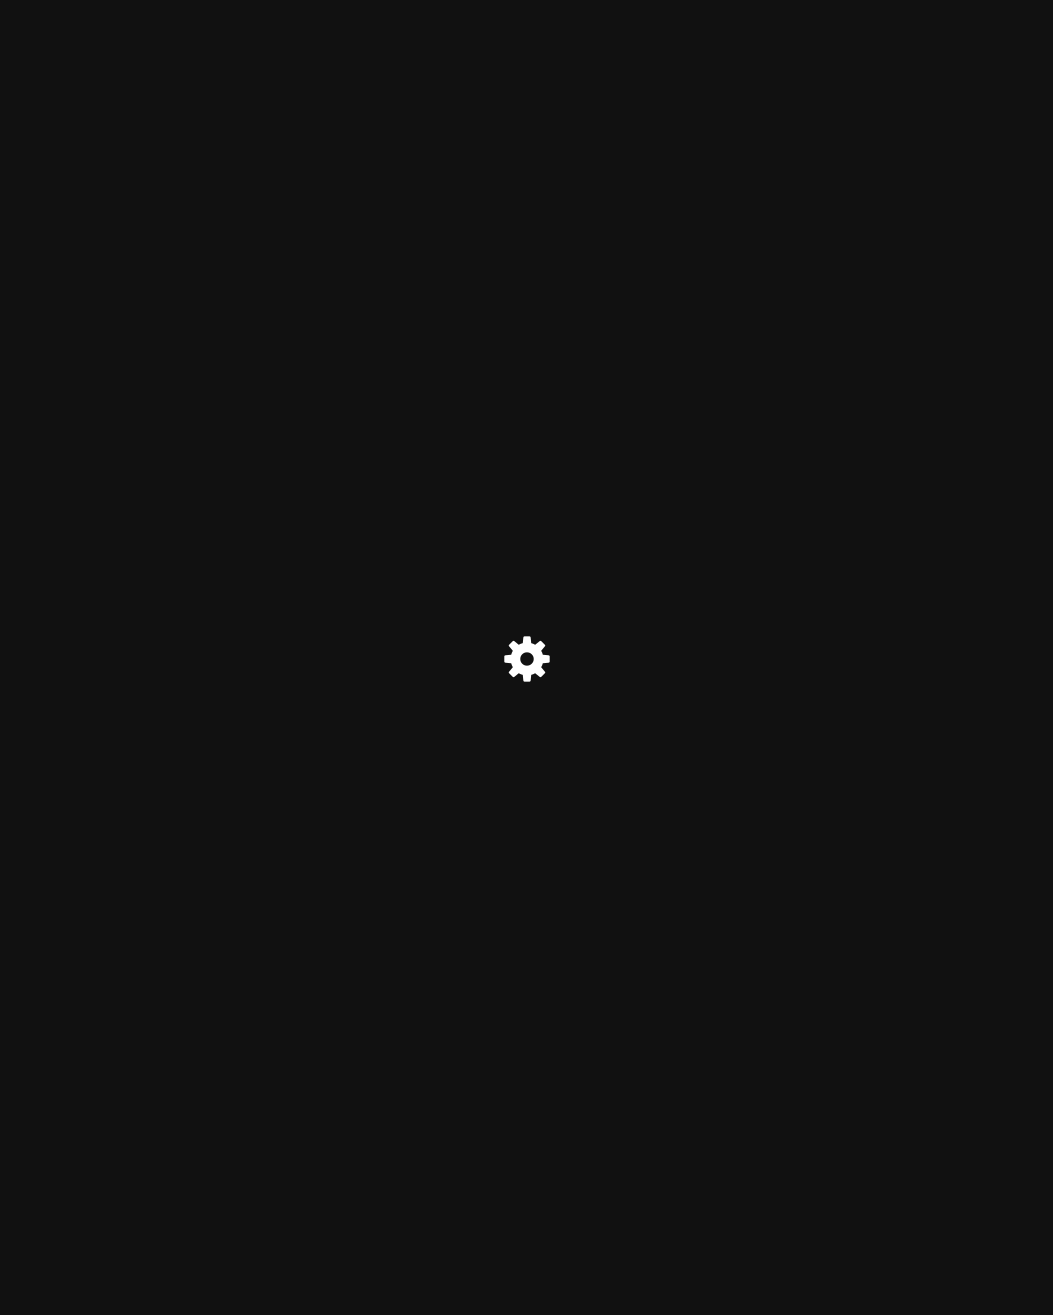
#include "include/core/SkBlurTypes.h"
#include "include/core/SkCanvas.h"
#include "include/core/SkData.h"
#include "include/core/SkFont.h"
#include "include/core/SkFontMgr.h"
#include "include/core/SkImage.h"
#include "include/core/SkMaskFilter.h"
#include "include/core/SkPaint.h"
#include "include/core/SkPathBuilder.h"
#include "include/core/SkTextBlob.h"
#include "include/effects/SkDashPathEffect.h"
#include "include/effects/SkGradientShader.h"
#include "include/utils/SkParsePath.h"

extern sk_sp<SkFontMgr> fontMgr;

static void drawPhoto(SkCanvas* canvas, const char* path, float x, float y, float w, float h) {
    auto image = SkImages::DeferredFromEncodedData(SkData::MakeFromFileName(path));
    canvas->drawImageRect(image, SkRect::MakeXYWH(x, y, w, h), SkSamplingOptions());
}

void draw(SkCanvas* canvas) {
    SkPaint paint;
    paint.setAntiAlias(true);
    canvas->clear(0xFF111111);
    drawPhoto(canvas, "assets/img1.png", 504, 636, 46, 46);
}
